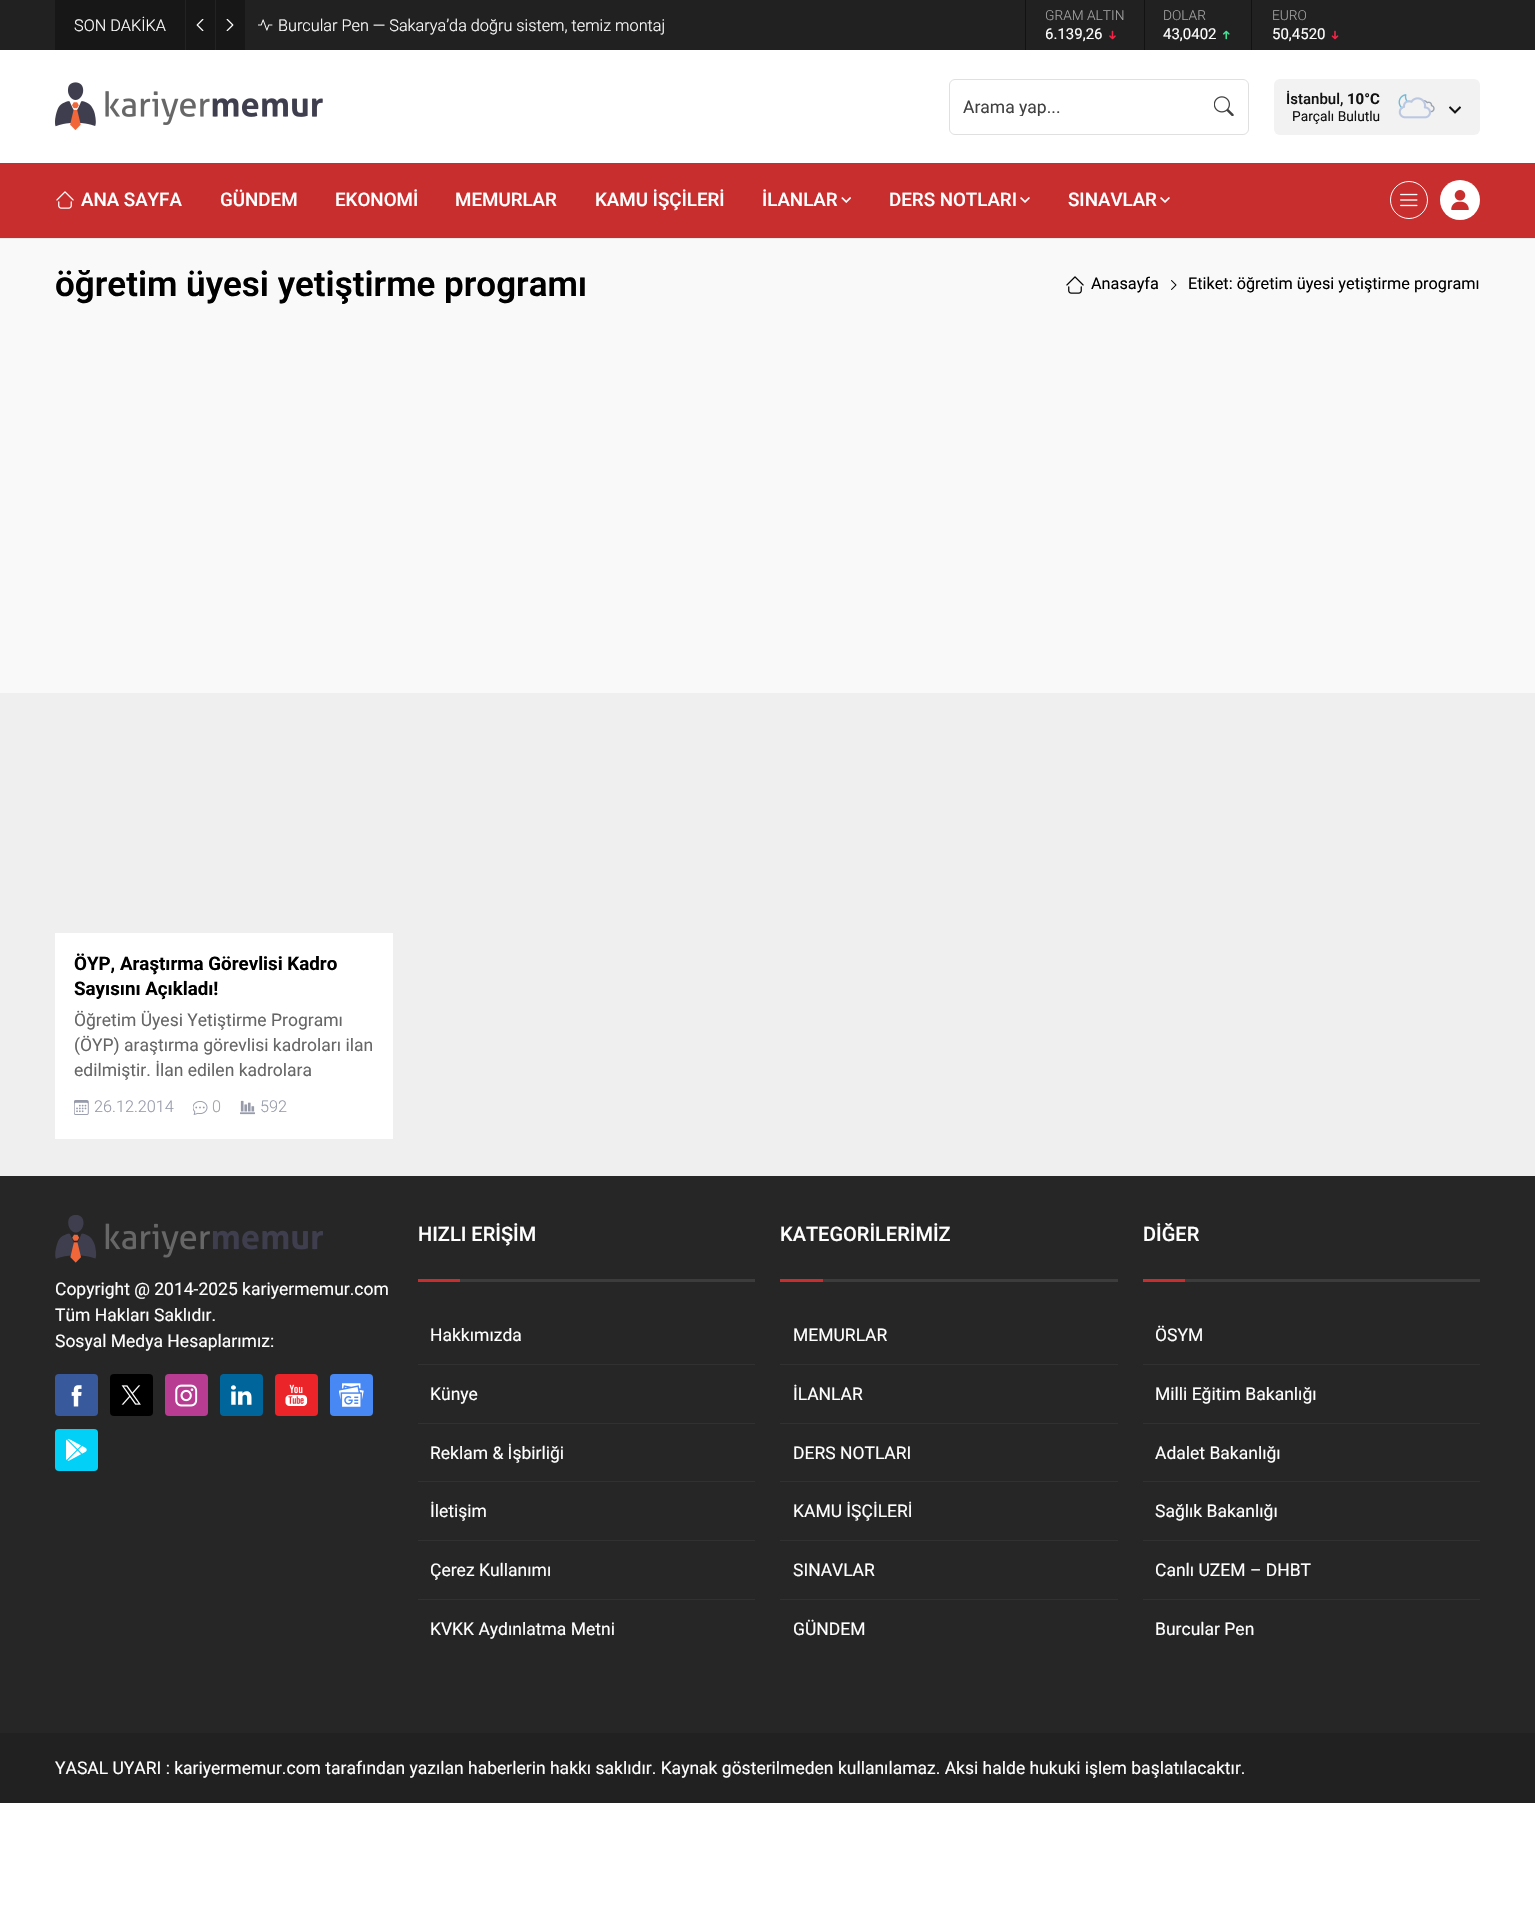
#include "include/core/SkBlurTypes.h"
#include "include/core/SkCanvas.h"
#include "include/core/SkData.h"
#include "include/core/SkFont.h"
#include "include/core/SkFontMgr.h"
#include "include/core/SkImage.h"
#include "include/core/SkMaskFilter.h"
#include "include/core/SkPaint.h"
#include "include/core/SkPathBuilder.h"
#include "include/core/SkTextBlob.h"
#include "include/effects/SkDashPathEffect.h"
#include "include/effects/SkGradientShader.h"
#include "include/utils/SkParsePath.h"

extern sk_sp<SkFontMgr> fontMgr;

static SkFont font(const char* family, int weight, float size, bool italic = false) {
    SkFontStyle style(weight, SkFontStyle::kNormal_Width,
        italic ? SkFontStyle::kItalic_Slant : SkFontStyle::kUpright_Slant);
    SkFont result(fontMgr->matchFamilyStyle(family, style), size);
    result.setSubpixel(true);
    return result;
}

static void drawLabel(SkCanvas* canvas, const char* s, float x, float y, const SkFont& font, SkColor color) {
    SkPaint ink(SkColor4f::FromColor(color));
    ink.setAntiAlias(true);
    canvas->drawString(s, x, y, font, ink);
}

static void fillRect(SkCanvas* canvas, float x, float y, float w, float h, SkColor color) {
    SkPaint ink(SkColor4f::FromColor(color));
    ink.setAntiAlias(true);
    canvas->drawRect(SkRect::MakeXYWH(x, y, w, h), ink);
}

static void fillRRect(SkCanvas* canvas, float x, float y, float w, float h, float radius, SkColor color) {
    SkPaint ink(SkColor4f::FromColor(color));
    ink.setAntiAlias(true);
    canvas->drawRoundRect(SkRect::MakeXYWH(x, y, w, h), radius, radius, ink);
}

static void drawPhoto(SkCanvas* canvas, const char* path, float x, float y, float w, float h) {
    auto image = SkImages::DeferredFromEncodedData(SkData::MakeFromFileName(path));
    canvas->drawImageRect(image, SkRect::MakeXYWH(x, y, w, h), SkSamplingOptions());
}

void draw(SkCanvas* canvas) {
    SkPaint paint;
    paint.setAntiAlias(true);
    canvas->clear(0xFFFFFFFF);
    fillRect(canvas, 0, 693, 1535, 483, 0xFFEFEFEF);
    fillRect(canvas, 0, 238, 1535, 1, 0xFFEAEAEA);
    fillRect(canvas, 0, 0, 1535, 50, 0xFF212121);
    fillRect(canvas, 55, 0, 190, 50, 0xFF171717);
    SkFont font1 = font("Roboto", 300, 16.25f);
    drawLabel(canvas, "SON DAKİKA", 74, 31, font1, 0xFFFFFFFF);
    fillRect(canvas, 185, 0, 1, 50, 0xFF232323);
    drawPhoto(canvas, "assets/img1.png", 196, 19, 8, 12);
    fillRect(canvas, 215, 0, 1, 50, 0xFF232323);
    drawPhoto(canvas, "assets/img2.png", 226, 19, 8, 12);
    drawPhoto(canvas, "assets/img3.png", 258, 19, 15, 12);
    drawLabel(canvas, "Burcular Pen — Sakarya’da doğru sistem, temiz montaj", 278, 31, font1, 0xFFFFFFFF);
    fillRect(canvas, 1025, 0, 1, 50, 0xFF121212);
    SkFont font2 = font("Roboto", 300, 13.75f);
    drawLabel(canvas, "GRAM ALTIN", 1045, 20, font2, 0xFFA2A2A2);
    SkFont font3 = font("Roboto", 400, 15);
    drawLabel(canvas, "6.139,26", 1045, 39, font3, 0xFFFFFFFF);
    drawPhoto(canvas, "assets/img4.png", 1109, 30, 7, 10);
    fillRect(canvas, 1144, 0, 1, 50, 0xFF121212);
    drawLabel(canvas, "DOLAR", 1163, 20, font2, 0xFFA2A2A2);
    drawLabel(canvas, "43,0402", 1163, 39, font3, 0xFFFFFFFF);
    drawPhoto(canvas, "assets/img5.png", 1223, 30, 7, 10);
    fillRect(canvas, 1251, 0, 1, 50, 0xFF121212);
    drawLabel(canvas, "EURO", 1272, 20, font2, 0xFFA2A2A2);
    drawLabel(canvas, "50,4520", 1272, 39, font3, 0xFFFFFFFF);
    drawPhoto(canvas, "assets/img6.png", 1331, 30, 8, 10);
    drawPhoto(canvas, "assets/img7.png", 55, 82, 268, 48);
    paint.setStroke(true);
    paint.setStrokeWidth(1);
    paint.setColor(0xFFE0E0E0);
    canvas->drawRoundRect(SkRect::MakeXYWH(949.5f, 79.5f, 299, 55), 5.5f, 5.5f, paint);
    canvas->save();
    canvas->clipRect(SkRect::MakeXYWH(963, 96, 235, 20));
    SkFont font4 = font("Roboto", 400, 17.5f);
    drawLabel(canvas, "Arama yap...", 963, 113, font4, 0xFF414141);
    canvas->restore();
    drawPhoto(canvas, "assets/img8.png", 1214, 96, 20, 20);
    fillRRect(canvas, 1274, 79, 206, 56, 6, 0xFFF2F2F2);
    SkFont font5 = font("Roboto", 500, 15);
    drawLabel(canvas, "İstanbul,", 1286, 104, font5, 0xFF121212);
    SkFont font6 = font("Roboto", 700, 15);
    drawLabel(canvas, "10°C", 1347, 104, font6, 0xFF121212);
    SkFont font7 = font("Roboto", 400, 13.75f);
    drawLabel(canvas, "Parçalı Bulutlu", 1292, 121, font7, 0xFF121212);
    drawPhoto(canvas, "assets/img9.png", 1398, 94, 37, 25);
    drawPhoto(canvas, "assets/img10.png", 1449, 106, 12, 8);
    fillRect(canvas, 0, 163, 1535, 75, 0xFFC92E2F);
    drawPhoto(canvas, "assets/img11.png", 56, 191, 18, 18);
    SkFont font8 = font("Roboto", 500, 18.75f);
    drawLabel(canvas, "ANA SAYFA", 81, 206, font8, 0xFFFFFFFF);
    drawLabel(canvas, "GÜNDEM", 220, 206, font8, 0xFFFFFFFF);
    drawLabel(canvas, "EKONOMİ", 335, 206, font8, 0xFFFFFFFF);
    drawLabel(canvas, "MEMURLAR", 455, 206, font8, 0xFFFFFFFF);
    drawLabel(canvas, "KAMU İŞÇİLERİ", 595, 206, font8, 0xFFFFFFFF);
    drawLabel(canvas, "İLANLAR", 762, 206, font8, 0xFFFFFFFF);
    drawPhoto(canvas, "assets/img12.png", 841, 197, 10, 6);
    drawLabel(canvas, "DERS NOTLARI", 889, 206, font8, 0xFFFFFFFF);
    drawPhoto(canvas, "assets/img13.png", 1020, 197, 10, 6);
    drawLabel(canvas, "SINAVLAR", 1068, 206, font8, 0xFFFFFFFF);
    drawPhoto(canvas, "assets/img13.png", 1160, 197, 10, 6);
    paint.setColor(0xFFFFFFFF);
    canvas->drawCircle(1409, 200, 18.5f, paint);
    drawPhoto(canvas, "assets/img14.png", 1400, 193, 18, 14);
    paint.setStroke(false);
    canvas->drawCircle(1460, 200, 20, paint);
    drawPhoto(canvas, "assets/img15.png", 1451, 190, 18, 20);
    fillRect(canvas, 0, 239, 1535, 454, 0xFFF9F9F9);
    SkFont font9 = font("Roboto", 600, 35);
    drawLabel(canvas, "öğretim üyesi yetiştirme programı", 55, 296, font9, 0xFF000000);
    drawPhoto(canvas, "assets/img16.png", 1066, 276, 18, 18);
    SkFont font10 = font("Roboto", 400, 16.25f);
    drawLabel(canvas, "Anasayfa", 1091, 289, font10, 0xFF000000);
    drawPhoto(canvas, "assets/img17.png", 1171, 280, 6, 10);
    drawLabel(canvas, "Etiket: öğretim üyesi yetiştirme programı", 1188, 289, font10, 0xFF000000);
    fillRect(canvas, 55, 933, 338, 206, 0xFFFFFFFF);
    SkFont font11 = font("Roboto", 700, 18.75f);
    drawLabel(canvas, "ÖYP, Araştırma Görevlisi Kadro", 74, 970, font11, 0xFF000000);
    drawLabel(canvas, "Sayısını Açıkladı!", 74, 995, font11, 0xFF000000);
    drawLabel(canvas, "Öğretim Üyesi Yetiştirme Programı", 74, 1026, font4, 0xFF666666);
    drawLabel(canvas, "(ÖYP) araştırma görevlisi kadroları ilan", 74, 1051, font4, 0xFF666666);
    drawLabel(canvas, "edilmiştir. İlan edilen kadrolara", 74, 1076, font4, 0xFF666666);
    drawPhoto(canvas, "assets/img18.png", 74, 1100, 15, 15);
    drawLabel(canvas, "26.12.2014", 94, 1112, font1, 0xFF969AA9);
    drawPhoto(canvas, "assets/img19.png", 193, 1101, 15, 14);
    drawLabel(canvas, "0", 212, 1112, font1, 0xFFA2A2A2);
    drawPhoto(canvas, "assets/img20.png", 240, 1100, 15, 15);
    drawLabel(canvas, "592", 260, 1112, font1, 0xFF969AA9);
    fillRect(canvas, 0, 1176, 1535, 557, 0xFF262626);
    drawPhoto(canvas, "assets/img21.png", 55, 1215, 268, 48);
    drawLabel(canvas, "Copyright @ 2014-2025 kariyermemur.com", 55, 1295, font4, 0xFFFFFFFF);
    drawLabel(canvas, "Tüm Hakları Saklıdır.", 55, 1321, font4, 0xFFFFFFFF);
    drawLabel(canvas, "Sosyal Medya Hesaplarımız:", 55, 1347, font4, 0xFFFFFFFF);
    fillRRect(canvas, 55, 1374, 43, 42, 4, 0xFF38599B);
    drawPhoto(canvas, "assets/img22.png", 71, 1385, 11, 22);
    fillRRect(canvas, 110, 1374, 43, 42, 4, 0xFF000000);
    drawPhoto(canvas, "assets/img23.png", 121, 1385, 20, 20);
    fillRRect(canvas, 165, 1374, 43, 42, 4, 0xFFB83C92);
    drawPhoto(canvas, "assets/img24.png", 175, 1384, 23, 23);
    fillRRect(canvas, 220, 1374, 43, 42, 4, 0xFF00659B);
    drawPhoto(canvas, "assets/img25.png", 231, 1385, 21, 20);
    fillRRect(canvas, 275, 1374, 43, 42, 4, 0xFFEB2429);
    drawPhoto(canvas, "assets/img26.png", 285, 1384, 23, 22);
    fillRRect(canvas, 330, 1374, 43, 42, 4, 0xFF4788F4);
    drawPhoto(canvas, "assets/img27.png", 339, 1383, 25, 24);
    fillRRect(canvas, 55, 1429, 43, 42, 4, 0xFF03D0F6);
    drawPhoto(canvas, "assets/img28.png", 66, 1438, 21, 23);
    fillRect(canvas, 460, 1279, 295, 3, 0xFF3C3C3C);
    SkFont font12 = font("Roboto", 500, 20);
    drawLabel(canvas, "HIZLI ERİŞİM", 418, 1241, font12, 0xFFFFFFFF);
    fillRect(canvas, 418, 1279, 42, 3, 0xFFC92E2F);
    drawLabel(canvas, "Hakkımızda", 430, 1341, font4, 0xFFFFFFFF);
    fillRect(canvas, 418, 1364, 337, 1, 0xFF313131);
    drawLabel(canvas, "Künye", 430, 1400, font4, 0xFFFFFFFF);
    fillRect(canvas, 418, 1423, 337, 1, 0xFF313131);
    drawLabel(canvas, "Reklam & İşbirliği", 430, 1459, font4, 0xFFFFFFFF);
    fillRect(canvas, 418, 1481, 337, 1, 0xFF313131);
    drawLabel(canvas, "İletişim", 430, 1517, font4, 0xFFFFFFFF);
    fillRect(canvas, 418, 1540, 337, 1, 0xFF313131);
    drawLabel(canvas, "Çerez Kullanımı", 430, 1576, font4, 0xFFFFFFFF);
    fillRect(canvas, 418, 1599, 337, 1, 0xFF313131);
    drawLabel(canvas, "KVKK Aydınlatma Metni", 430, 1635, font4, 0xFFFFFFFF);
    fillRect(canvas, 823, 1279, 295, 3, 0xFF3C3C3C);
    drawLabel(canvas, "KATEGORİLERİMİZ", 780, 1241, font12, 0xFFFFFFFF);
    fillRect(canvas, 780, 1279, 43, 3, 0xFFC92E2F);
    drawLabel(canvas, "MEMURLAR", 793, 1341, font4, 0xFFFFFFFF);
    fillRect(canvas, 780, 1364, 338, 1, 0xFF313131);
    drawLabel(canvas, "İLANLAR", 793, 1400, font4, 0xFFFFFFFF);
    fillRect(canvas, 780, 1423, 338, 1, 0xFF313131);
    drawLabel(canvas, "DERS NOTLARI", 793, 1459, font4, 0xFFFFFFFF);
    fillRect(canvas, 780, 1481, 338, 1, 0xFF313131);
    drawLabel(canvas, "KAMU İŞÇİLERİ", 793, 1517, font4, 0xFFFFFFFF);
    fillRect(canvas, 780, 1540, 338, 1, 0xFF313131);
    drawLabel(canvas, "SINAVLAR", 793, 1576, font4, 0xFFFFFFFF);
    fillRect(canvas, 780, 1599, 338, 1, 0xFF313131);
    drawLabel(canvas, "GÜNDEM", 793, 1635, font4, 0xFFFFFFFF);
    fillRect(canvas, 1185, 1279, 295, 3, 0xFF3C3C3C);
    drawLabel(canvas, "DİĞER", 1143, 1241, font12, 0xFFFFFFFF);
    fillRect(canvas, 1143, 1279, 42, 3, 0xFFC92E2F);
    drawLabel(canvas, "ÖSYM", 1155, 1341, font4, 0xFFFFFFFF);
    fillRect(canvas, 1143, 1364, 337, 1, 0xFF313131);
    drawLabel(canvas, "Milli Eğitim Bakanlığı", 1155, 1400, font4, 0xFFFFFFFF);
    fillRect(canvas, 1143, 1423, 337, 1, 0xFF313131);
    drawLabel(canvas, "Adalet Bakanlığı", 1155, 1459, font4, 0xFFFFFFFF);
    fillRect(canvas, 1143, 1481, 337, 1, 0xFF313131);
    drawLabel(canvas, "Sağlık Bakanlığı", 1155, 1517, font4, 0xFFFFFFFF);
    fillRect(canvas, 1143, 1540, 337, 1, 0xFF313131);
    drawLabel(canvas, "Canlı UZEM – DHBT", 1155, 1576, font4, 0xFFFFFFFF);
    fillRect(canvas, 1143, 1599, 337, 1, 0xFF313131);
    drawLabel(canvas, "Burcular Pen", 1155, 1635, font4, 0xFFFFFFFF);
    fillRect(canvas, 0, 1733, 1535, 70, 0xFF212121);
    drawLabel(canvas, "YASAL UYARI : kariyermemur.com tarafından yazılan haberlerin hakkı saklıdır. Kaynak gösterilmeden kullanılamaz. Aksi halde hukuki işlem başlatılacaktır.", 55, 1774, font4, 0xFFFFFFFF);
}
